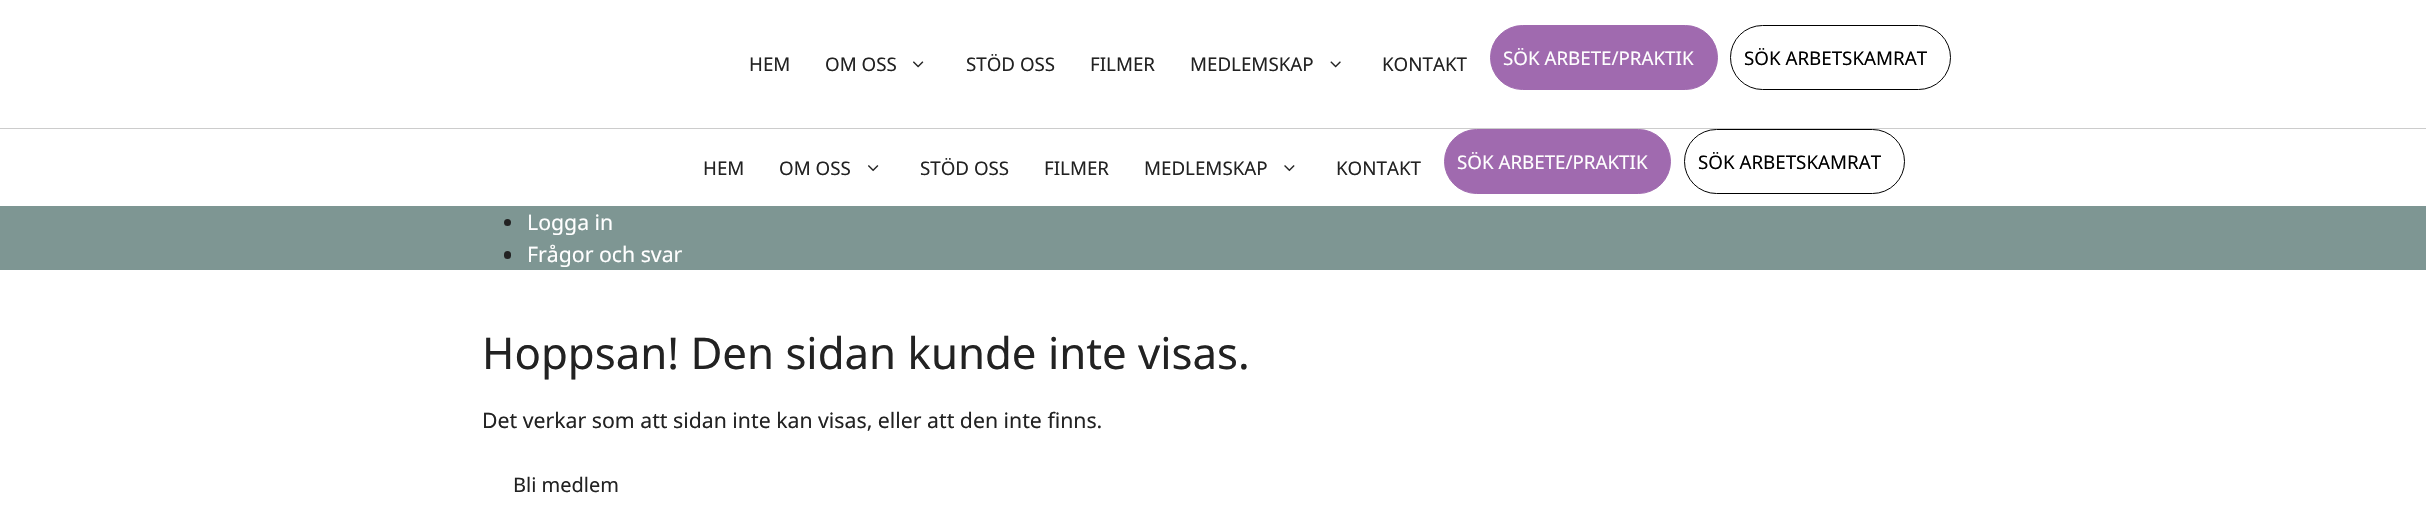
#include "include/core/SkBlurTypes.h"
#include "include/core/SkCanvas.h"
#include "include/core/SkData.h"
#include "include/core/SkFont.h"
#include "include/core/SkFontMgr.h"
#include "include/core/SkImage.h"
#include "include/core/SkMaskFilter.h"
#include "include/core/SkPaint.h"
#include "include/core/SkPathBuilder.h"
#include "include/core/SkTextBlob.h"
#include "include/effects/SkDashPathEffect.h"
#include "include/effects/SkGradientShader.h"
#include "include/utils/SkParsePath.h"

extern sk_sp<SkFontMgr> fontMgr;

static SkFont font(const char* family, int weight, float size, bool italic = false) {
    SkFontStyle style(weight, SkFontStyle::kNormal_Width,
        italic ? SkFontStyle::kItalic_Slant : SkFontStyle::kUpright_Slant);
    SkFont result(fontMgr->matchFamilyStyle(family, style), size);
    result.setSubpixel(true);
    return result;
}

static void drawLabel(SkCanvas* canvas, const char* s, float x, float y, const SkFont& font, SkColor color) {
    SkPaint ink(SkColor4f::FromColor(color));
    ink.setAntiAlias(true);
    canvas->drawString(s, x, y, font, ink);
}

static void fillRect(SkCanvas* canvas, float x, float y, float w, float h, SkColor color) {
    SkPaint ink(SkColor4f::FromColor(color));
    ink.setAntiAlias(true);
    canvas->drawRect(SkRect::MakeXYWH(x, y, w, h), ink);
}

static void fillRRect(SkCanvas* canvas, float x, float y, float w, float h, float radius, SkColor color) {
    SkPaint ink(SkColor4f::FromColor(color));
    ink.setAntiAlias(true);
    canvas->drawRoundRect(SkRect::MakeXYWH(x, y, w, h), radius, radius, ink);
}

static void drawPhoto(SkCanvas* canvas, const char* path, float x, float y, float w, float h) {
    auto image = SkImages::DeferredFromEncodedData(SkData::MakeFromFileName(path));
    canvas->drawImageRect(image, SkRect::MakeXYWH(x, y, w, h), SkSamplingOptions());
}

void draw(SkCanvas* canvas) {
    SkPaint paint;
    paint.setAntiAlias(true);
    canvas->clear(0xFFFFFFFF);
    fillRect(canvas, 0, 128, 2426, 1, 0xFFCCCCCC);
    SkFont font1 = font("Noto Sans", 400, 18.75f);
    drawLabel(canvas, "HEM", 749, 71, font1, 0xFF222222);
    drawLabel(canvas, "OM OSS", 825, 71, font1, 0xFF222222);
    drawPhoto(canvas, "assets/img1.png", 913, 61, 11, 7);
    drawLabel(canvas, "STÖD OSS", 966, 71, font1, 0xFF222222);
    drawLabel(canvas, "FILMER", 1090, 71, font1, 0xFF222222);
    drawLabel(canvas, "MEDLEMSKAP", 1190, 71, font1, 0xFF222222);
    drawPhoto(canvas, "assets/img2.png", 1330, 61, 11, 7);
    drawLabel(canvas, "KONTAKT", 1382, 71, font1, 0xFF222222);
    paint.setColor(0xFFA06AAF);
    canvas->drawRoundRect(SkRect::MakeXYWH(1490.5f, 25.5f, 227, 64), 32, 32, paint);
    paint.setStroke(true);
    paint.setStrokeWidth(1);
    canvas->drawRoundRect(SkRect::MakeXYWH(1490.5f, 25.5f, 227, 64), 32, 32, paint);
    drawLabel(canvas, "SÖK ARBETE/PRAKTIK", 1503, 65, font1, 0xFFFFFFFF);
    paint.setColor(0xFF000000);
    canvas->drawRoundRect(SkRect::MakeXYWH(1730.5f, 25.5f, 220, 64), 32, 32, paint);
    drawLabel(canvas, "SÖK ARBETSKAMRAT", 1744, 65, font1, 0xFF000000);
    drawLabel(canvas, "HEM", 703, 175, font1, 0xFF222222);
    drawLabel(canvas, "OM OSS", 779, 175, font1, 0xFF222222);
    drawPhoto(canvas, "assets/img3.png", 868, 165, 11, 7);
    drawLabel(canvas, "STÖD OSS", 920, 175, font1, 0xFF222222);
    drawLabel(canvas, "FILMER", 1044, 175, font1, 0xFF222222);
    drawLabel(canvas, "MEDLEMSKAP", 1144, 175, font1, 0xFF222222);
    drawPhoto(canvas, "assets/img4.png", 1284, 165, 11, 7);
    drawLabel(canvas, "KONTAKT", 1336, 175, font1, 0xFF222222);
    paint.setStroke(false);
    paint.setColor(0xFFA06AAF);
    canvas->drawRoundRect(SkRect::MakeXYWH(1444.5f, 129.5f, 226, 64), 32, 32, paint);
    paint.setStroke(true);
    canvas->drawRoundRect(SkRect::MakeXYWH(1444.5f, 129.5f, 226, 64), 32, 32, paint);
    drawLabel(canvas, "SÖK ARBETE/PRAKTIK", 1457, 169, font1, 0xFFFFFFFF);
    paint.setColor(0xFF000000);
    canvas->drawRoundRect(SkRect::MakeXYWH(1684.5f, 129.5f, 220, 64), 32, 32, paint);
    drawLabel(canvas, "SÖK ARBETSKAMRAT", 1698, 169, font1, 0xFF000000);
    fillRect(canvas, 0, 206, 2426, 64, 0xFF7E9693);
    paint.setStroke(false);
    paint.setColor(0xFF222222);
    canvas->drawCircle(507.5f, 222.5f, 3.5f, paint);
    SkFont font2 = font("Noto Sans", 400, 21.25f);
    drawLabel(canvas, "Logga in", 527, 230, font2, 0xFFFFFFFF);
    fillRRect(canvas, 504, 251, 7, 8, 3.5f, 0xFF222222);
    drawLabel(canvas, "Frågor och svar", 527, 262, font2, 0xFFFFFFFF);
    SkFont font3 = font("Noto Sans", 400, 43.75f);
    drawLabel(canvas, "Hoppsan! Den sidan kunde inte visas.", 482, 369, font3, 0xFF222222);
    drawLabel(canvas, "Det verkar som att sidan inte kan visas, eller att den inte finns.", 482, 428, font2, 0xFF222222);
    SkFont font4 = font("Noto Sans", 400, 20);
    drawLabel(canvas, "Bli medlem", 513, 492, font4, 0xFF222222);
}
